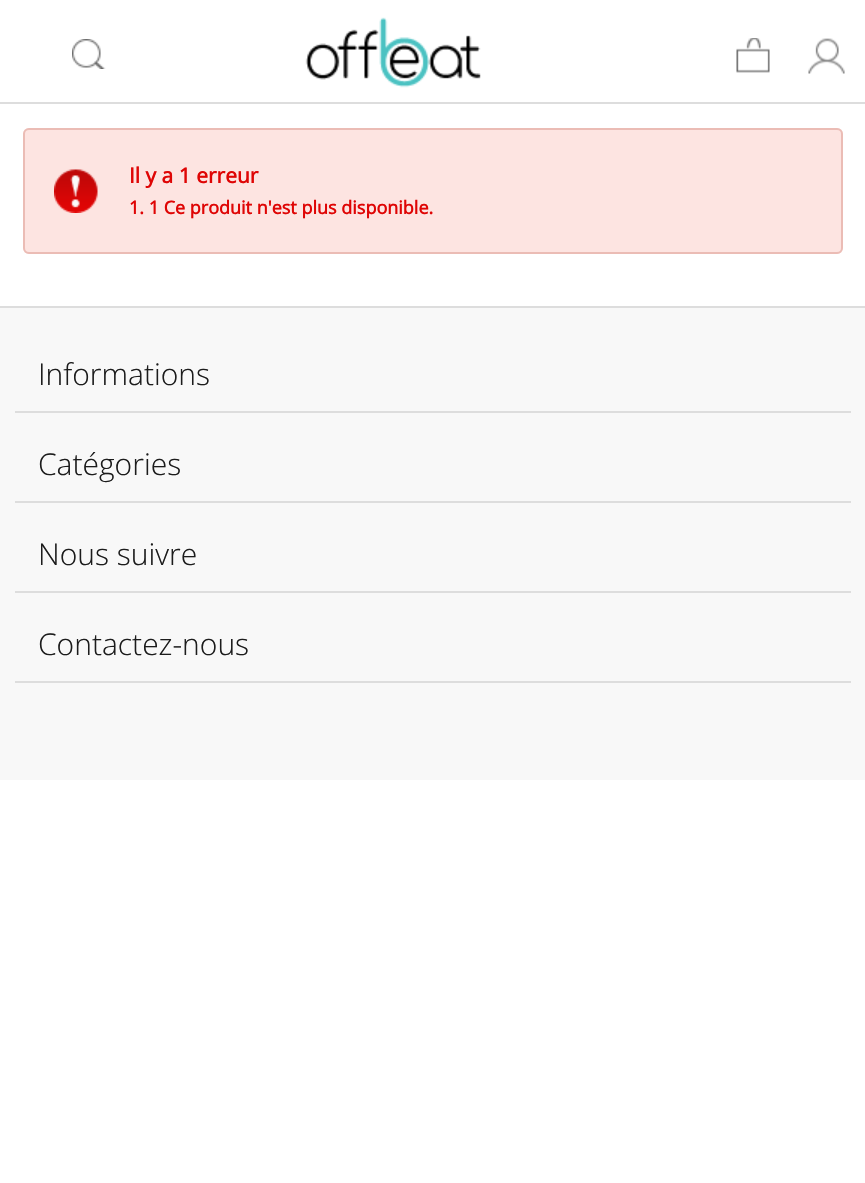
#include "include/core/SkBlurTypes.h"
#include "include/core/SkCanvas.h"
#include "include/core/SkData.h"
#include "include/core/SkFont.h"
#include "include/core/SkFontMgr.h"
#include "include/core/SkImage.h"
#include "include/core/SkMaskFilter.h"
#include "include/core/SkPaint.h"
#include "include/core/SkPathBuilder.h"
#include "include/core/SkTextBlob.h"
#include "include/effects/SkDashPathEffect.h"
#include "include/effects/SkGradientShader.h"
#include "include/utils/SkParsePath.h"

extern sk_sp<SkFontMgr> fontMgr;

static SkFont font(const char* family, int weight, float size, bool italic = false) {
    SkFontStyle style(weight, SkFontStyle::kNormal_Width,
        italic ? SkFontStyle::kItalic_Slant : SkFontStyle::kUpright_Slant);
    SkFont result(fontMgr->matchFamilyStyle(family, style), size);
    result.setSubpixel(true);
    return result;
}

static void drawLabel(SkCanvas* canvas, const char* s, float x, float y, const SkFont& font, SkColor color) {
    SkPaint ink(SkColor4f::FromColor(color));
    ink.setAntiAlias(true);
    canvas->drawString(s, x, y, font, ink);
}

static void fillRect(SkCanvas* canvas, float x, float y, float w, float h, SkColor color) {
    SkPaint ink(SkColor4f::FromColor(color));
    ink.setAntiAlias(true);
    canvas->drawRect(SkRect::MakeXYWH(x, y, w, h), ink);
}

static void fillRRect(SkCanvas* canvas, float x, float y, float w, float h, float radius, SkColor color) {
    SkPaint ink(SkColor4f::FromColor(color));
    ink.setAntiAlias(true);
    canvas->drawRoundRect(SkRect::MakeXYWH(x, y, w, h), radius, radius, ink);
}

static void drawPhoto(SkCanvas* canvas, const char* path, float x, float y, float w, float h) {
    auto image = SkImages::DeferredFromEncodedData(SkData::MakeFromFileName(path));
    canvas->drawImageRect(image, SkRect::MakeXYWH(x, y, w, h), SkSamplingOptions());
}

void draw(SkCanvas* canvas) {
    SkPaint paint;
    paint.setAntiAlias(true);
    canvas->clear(0xFFFFFFFF);
    fillRect(canvas, 0, 102, 865, 2, 0xFFDDDDDD);
    drawPhoto(canvas, "assets/img1.png", 72, 39, 34, 30);
    drawPhoto(canvas, "assets/img2.png", 305, 17, 176, 71);
    drawPhoto(canvas, "assets/img3.png", 736, 38, 34, 35);
    drawPhoto(canvas, "assets/img4.png", 808, 38, 37, 36);
    fillRRect(canvas, 23, 128, 820, 126, 6, 0xFFFDE4E1);
    drawPhoto(canvas, "assets/img5.png", 54, 169, 44, 44);
    paint.setStroke(true);
    paint.setStrokeWidth(2);
    paint.setColor(0xFFEBBCB5);
    canvas->drawRoundRect(SkRect::MakeXYWH(24, 129, 818, 124), 5, 5, paint);
    SkFont font1 = font("Open Sans", 700, 21);
    drawLabel(canvas, "Il y a 1 erreur", 129, 183, font1, 0xFFDF0505);
    SkFont font2 = font("Open Sans", 700, 18);
    drawLabel(canvas, "1. 1 Ce produit n'est plus disponible.", 129, 214, font2, 0xFFDF0505);
    fillRect(canvas, 0, 308, 865, 472, 0xFFF8F8F8);
    fillRect(canvas, 0, 306, 865, 2, 0xFFDDDDDD);
    fillRect(canvas, 15, 411, 836, 2, 0xFFDDDDDD);
    SkFont font3 = font("Open Sans", 300, 30);
    drawLabel(canvas, "Informations", 38, 385, font3, 0xFF1C1C1C);
    fillRect(canvas, 15, 501, 836, 2, 0xFFDDDDDD);
    drawLabel(canvas, "Catégories", 38, 475, font3, 0xFF1C1C1C);
    fillRect(canvas, 15, 591, 836, 2, 0xFFDDDDDD);
    drawLabel(canvas, "Nous suivre", 38, 565, font3, 0xFF1C1C1C);
    fillRect(canvas, 15, 681, 836, 2, 0xFFDDDDDD);
    drawLabel(canvas, "Contactez-nous", 38, 655, font3, 0xFF1C1C1C);
}
